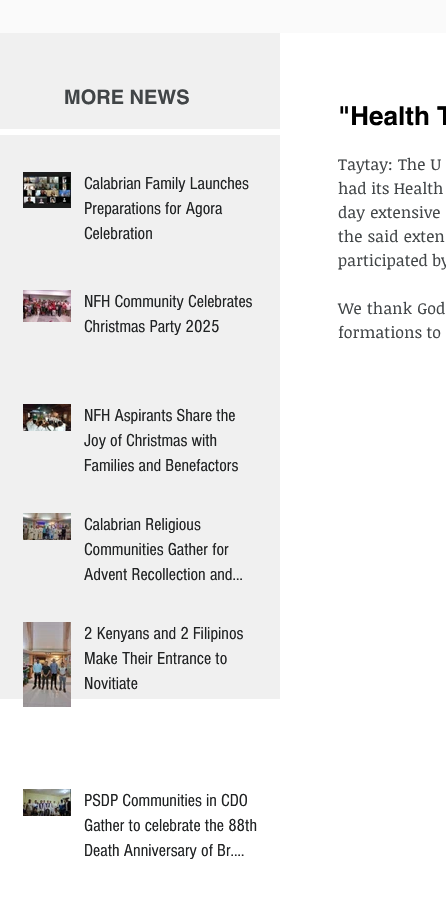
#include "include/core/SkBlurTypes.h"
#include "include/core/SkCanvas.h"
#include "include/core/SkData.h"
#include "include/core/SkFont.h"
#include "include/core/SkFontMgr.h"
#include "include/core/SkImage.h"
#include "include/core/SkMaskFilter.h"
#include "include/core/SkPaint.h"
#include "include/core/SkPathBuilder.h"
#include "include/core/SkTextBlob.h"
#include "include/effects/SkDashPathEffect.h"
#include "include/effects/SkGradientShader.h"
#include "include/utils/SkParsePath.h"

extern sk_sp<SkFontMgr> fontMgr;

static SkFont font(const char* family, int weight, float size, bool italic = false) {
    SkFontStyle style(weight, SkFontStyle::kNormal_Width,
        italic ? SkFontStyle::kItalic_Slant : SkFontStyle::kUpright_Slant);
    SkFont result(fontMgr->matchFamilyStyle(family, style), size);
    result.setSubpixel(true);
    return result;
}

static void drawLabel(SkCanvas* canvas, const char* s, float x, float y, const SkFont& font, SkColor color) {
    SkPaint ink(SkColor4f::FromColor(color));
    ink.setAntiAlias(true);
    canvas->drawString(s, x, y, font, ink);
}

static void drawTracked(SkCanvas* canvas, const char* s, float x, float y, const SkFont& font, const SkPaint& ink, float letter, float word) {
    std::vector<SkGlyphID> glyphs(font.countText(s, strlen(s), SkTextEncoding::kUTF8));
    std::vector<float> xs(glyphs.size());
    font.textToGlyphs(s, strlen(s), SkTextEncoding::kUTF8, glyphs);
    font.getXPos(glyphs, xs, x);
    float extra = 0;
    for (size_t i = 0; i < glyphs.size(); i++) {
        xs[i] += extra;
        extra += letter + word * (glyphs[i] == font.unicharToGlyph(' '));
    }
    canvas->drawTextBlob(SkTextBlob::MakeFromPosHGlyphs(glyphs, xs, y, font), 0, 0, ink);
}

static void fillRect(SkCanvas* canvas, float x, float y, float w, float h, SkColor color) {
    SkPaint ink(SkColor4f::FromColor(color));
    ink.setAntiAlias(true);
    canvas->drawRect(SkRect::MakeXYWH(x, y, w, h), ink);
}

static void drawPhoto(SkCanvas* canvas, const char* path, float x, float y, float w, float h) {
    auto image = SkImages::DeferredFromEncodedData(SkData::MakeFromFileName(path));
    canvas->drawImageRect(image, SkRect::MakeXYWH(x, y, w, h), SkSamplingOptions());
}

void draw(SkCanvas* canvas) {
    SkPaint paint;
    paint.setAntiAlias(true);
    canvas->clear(0xFFFFFFFF);
    fillRect(canvas, 0, 0, 446, 33, 0xFFFAFAFA);
    fillRect(canvas, 0, 33, 280, 666, 0xFFF0F0F0);
    SkFont font1 = font("helvetica", 700, 20);
    drawLabel(canvas, "MORE NEWS", 64, 104, font1, 0xFF414547);
    fillRect(canvas, 0, 129, 280, 6, 0xFFFFFFFF);
    SkFont font2 = font("helvetica", 700, 26);
    drawLabel(canvas, "\"Health T", 338, 125, font2, 0xFF000000);
    SkFont font3 = font("Noticia Text", 400, 16);
    paint.setColor(0xFF414547);
    drawTracked(canvas, "Taytay: The U", 338, 170, font3, paint, 0, 1);
    drawLabel(canvas, "had its Health", 338, 194, font3, 0xFF414547);
    drawTracked(canvas, "day extensive", 338, 218, font3, paint, 0, 1);
    drawTracked(canvas, "the said exten", 338, 242, font3, paint, 0, 1);
    drawLabel(canvas, "participated by", 338, 266, font3, 0xFF414547);
    drawTracked(canvas, "We thank God", 338, 314, font3, paint, 0, 1);
    drawLabel(canvas, "formations to", 338, 338, font3, 0xFF414547);
    drawPhoto(canvas, "assets/img1.png", 23, 172, 48, 36);
    SkFont font4 = font("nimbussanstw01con", 400, 18);
    drawLabel(canvas, "Calabrian Family Launches", 84, 189, font4, 0xFF202223);
    drawLabel(canvas, "Preparations for Agora", 84, 214, font4, 0xFF202223);
    drawLabel(canvas, "Celebration", 84, 239, font4, 0xFF202223);
    drawPhoto(canvas, "assets/img2.png", 23, 290, 48, 32);
    drawLabel(canvas, "NFH Community Celebrates", 84, 307, font4, 0xFF202223);
    drawLabel(canvas, "Christmas Party 2025", 84, 332, font4, 0xFF202223);
    drawPhoto(canvas, "assets/img3.png", 23, 404, 48, 27);
    drawLabel(canvas, "NFH Aspirants Share the", 84, 421, font4, 0xFF202223);
    drawLabel(canvas, "Joy of Christmas with", 84, 446, font4, 0xFF202223);
    drawLabel(canvas, "Families and Benefactors", 84, 471, font4, 0xFF202223);
    drawPhoto(canvas, "assets/img4.png", 23, 513, 48, 27);
    drawLabel(canvas, "Calabrian Religious", 84, 530, font4, 0xFF202223);
    drawLabel(canvas, "Communities Gather for", 84, 555, font4, 0xFF202223);
    drawLabel(canvas, "Advent Recollection and…", 84, 580, font4, 0xFF202223);
    drawPhoto(canvas, "assets/img5.png", 23, 622, 48, 85);
    drawLabel(canvas, "2 Kenyans and 2 Filipinos", 84, 639, font4, 0xFF202223);
    drawLabel(canvas, "Make Their Entrance to", 84, 664, font4, 0xFF202223);
    drawLabel(canvas, "Novitiate", 84, 689, font4, 0xFF202223);
    drawPhoto(canvas, "assets/img6.png", 23, 789, 48, 27);
    drawLabel(canvas, "PSDP Communities in CDO", 84, 806, font4, 0xFF202223);
    drawLabel(canvas, "Gather to celebrate the 88th", 84, 831, font4, 0xFF202223);
    drawLabel(canvas, "Death Anniversary of Br.…", 84, 856, font4, 0xFF202223);
}
